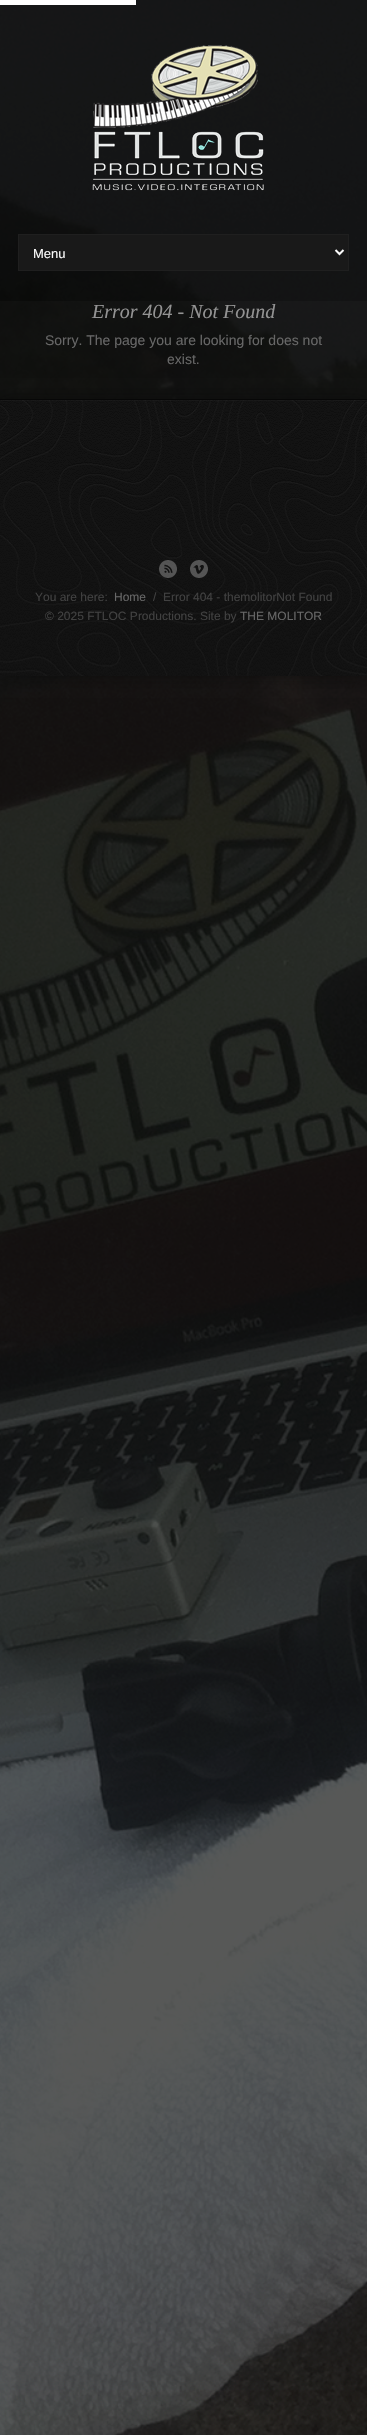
#include "include/core/SkBlurTypes.h"
#include "include/core/SkCanvas.h"
#include "include/core/SkData.h"
#include "include/core/SkFont.h"
#include "include/core/SkFontMgr.h"
#include "include/core/SkImage.h"
#include "include/core/SkMaskFilter.h"
#include "include/core/SkPaint.h"
#include "include/core/SkPathBuilder.h"
#include "include/core/SkTextBlob.h"
#include "include/effects/SkDashPathEffect.h"
#include "include/effects/SkGradientShader.h"
#include "include/utils/SkParsePath.h"

extern sk_sp<SkFontMgr> fontMgr;

static SkFont font(const char* family, int weight, float size, bool italic = false) {
    SkFontStyle style(weight, SkFontStyle::kNormal_Width,
        italic ? SkFontStyle::kItalic_Slant : SkFontStyle::kUpright_Slant);
    SkFont result(fontMgr->matchFamilyStyle(family, style), size);
    result.setSubpixel(true);
    return result;
}

static void drawLabel(SkCanvas* canvas, const char* s, float x, float y, const SkFont& font, SkColor color) {
    SkPaint ink(SkColor4f::FromColor(color));
    ink.setAntiAlias(true);
    canvas->drawString(s, x, y, font, ink);
}

static void fillRect(SkCanvas* canvas, float x, float y, float w, float h, SkColor color) {
    SkPaint ink(SkColor4f::FromColor(color));
    ink.setAntiAlias(true);
    canvas->drawRect(SkRect::MakeXYWH(x, y, w, h), ink);
}

static void drawPhoto(SkCanvas* canvas, const char* path, float x, float y, float w, float h) {
    auto image = SkImages::DeferredFromEncodedData(SkData::MakeFromFileName(path));
    canvas->drawImageRect(image, SkRect::MakeXYWH(x, y, w, h), SkSamplingOptions());
}

static SkPath parsePath(const char* data, bool evenOdd = false) {
    SkPath result = *SkParsePath::FromSVGString(data);
    if (evenOdd) result.setFillType(SkPathFillType::kEvenOdd);
    return result;
}

void draw(SkCanvas* canvas) {
    SkPaint paint;
    paint.setAntiAlias(true);
    canvas->clear(0xFF131313);
    drawPhoto(canvas, "assets/img1.png", 0, 0, 367, 2435);
    fillRect(canvas, 0, 0, 367, 301, 0xB3000000);
    fillRect(canvas, 0, 0, 136, 5, 0xFFFFFFFF);
    drawPhoto(canvas, "assets/img2.png", 92, 45, 172, 146);
    paint.setColor(0xFF191919);
    canvas->drawRect(SkRect::MakeXYWH(18.5f, 234.5f, 330, 36), paint);
    paint.setStroke(true);
    paint.setStrokeWidth(1);
    paint.setColor(0xFF1F1F1F);
    canvas->drawRect(SkRect::MakeXYWH(18.5f, 234.5f, 330, 36), paint);
    paint.setStrokeWidth(2);
    paint.setColor(0xFFFAFAFA);
    canvas->drawPath(parsePath("M335.5 250L339.5 254L343.5 250"), paint);
    SkFont font1 = font("Liberation Sans", 400, 13);
    drawLabel(canvas, "Menu", 33, 258, font1, 0xFFFAFAFA);
    fillRect(canvas, 0, 301, 367, 98, 0xB3070707);
    SkFont font2 = font("Liberation Serif", 400, 20, true);
    drawLabel(canvas, "Error 404 - Not Found", 92, 318, font2, 0xFF939393);
    SkFont font3 = font("Liberation Sans", 400, 14);
    drawLabel(canvas, "Sorry. The page you are looking for does not", 45, 345, font3, 0xFF676767);
    drawLabel(canvas, "exist.", 167, 364, font3, 0xFF676767);
    paint.setStroke(false);
    paint.setColor(0x80070707);
    paint.setMaskFilter(SkMaskFilter::MakeBlur(kNormal_SkBlurStyle, 7.5f));
    canvas->drawRect(SkRect::MakeXYWH(0, 400, 367, 276), paint);
    paint.setMaskFilter(nullptr);
    drawPhoto(canvas, "assets/img3.png", 0, 400, 367, 276);
    fillRect(canvas, 0, 399, 367, 1, 0xFF070707);
    fillRect(canvas, 0, 400, 367, 1, 0x0A969696);
    drawPhoto(canvas, "assets/img4.png", 159, 560, 18, 18);
    drawPhoto(canvas, "assets/img5.png", 190, 560, 18, 18);
    SkFont font4 = font("Liberation Sans", 400, 12);
    drawLabel(canvas, "You are here:", 35, 601, font4, 0xFF414141);
    drawLabel(canvas, "Home", 114, 601, font4, 0xFF676767);
    drawLabel(canvas, "/", 153, 601, font4, 0xFF414141);
    drawLabel(canvas, "Error 404 - themolitorNot Found", 163, 601, font4, 0xFF414141);
    drawLabel(canvas, "© 2025 FTLOC Productions. Site by", 45, 620, font4, 0xFF414141);
    drawLabel(canvas, "THE MOLITOR", 240, 620, font4, 0xFF676767);
}
